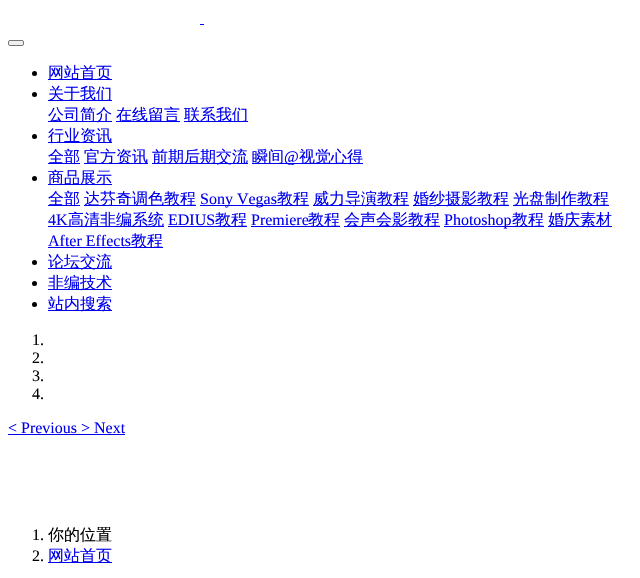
#include "include/core/SkBlurTypes.h"
#include "include/core/SkCanvas.h"
#include "include/core/SkData.h"
#include "include/core/SkFont.h"
#include "include/core/SkFontMgr.h"
#include "include/core/SkImage.h"
#include "include/core/SkMaskFilter.h"
#include "include/core/SkPaint.h"
#include "include/core/SkPathBuilder.h"
#include "include/core/SkTextBlob.h"
#include "include/effects/SkDashPathEffect.h"
#include "include/effects/SkGradientShader.h"
#include "include/utils/SkParsePath.h"

extern sk_sp<SkFontMgr> fontMgr;

static SkFont font(const char* family, int weight, float size, bool italic = false) {
    SkFontStyle style(weight, SkFontStyle::kNormal_Width,
        italic ? SkFontStyle::kItalic_Slant : SkFontStyle::kUpright_Slant);
    SkFont result(fontMgr->matchFamilyStyle(family, style), size);
    result.setSubpixel(true);
    return result;
}

static void drawLabel(SkCanvas* canvas, const char* s, float x, float y, const SkFont& font, SkColor color) {
    SkPaint ink(SkColor4f::FromColor(color));
    ink.setAntiAlias(true);
    canvas->drawString(s, x, y, font, ink);
}

static void fillRect(SkCanvas* canvas, float x, float y, float w, float h, SkColor color) {
    SkPaint ink(SkColor4f::FromColor(color));
    ink.setAntiAlias(true);
    canvas->drawRect(SkRect::MakeXYWH(x, y, w, h), ink);
}

void draw(SkCanvas* canvas) {
    SkPaint paint;
    paint.setAntiAlias(true);
    canvas->clear(0xFFFFFFFF);
    fillRect(canvas, 200, 24, 4, 1, 0xFF0000EE);
    paint.setColor(0xFFEFEFEF);
    canvas->drawRoundRect(SkRect::MakeXYWH(8.5f, 40.5f, 15, 5), 1.5f, 1.5f, paint);
    paint.setStroke(true);
    paint.setStrokeWidth(1);
    paint.setColor(0xFF767676);
    canvas->drawRoundRect(SkRect::MakeXYWH(8.5f, 40.5f, 15, 5), 1.5f, 1.5f, paint);
    paint.setStroke(false);
    paint.setColor(0xFF000000);
    canvas->drawCircle(34.5f, 73.5f, 2.5f, paint);
    fillRect(canvas, 48, 79, 64, 1, 0xFF0000EE);
    SkFont font1 = font("WenQuanYi Zen Hei", 500, 16);
    drawLabel(canvas, "网站首页", 48, 78, font1, 0xFF0000EE);
    canvas->drawCircle(34.5f, 94.5f, 2.5f, paint);
    fillRect(canvas, 48, 100, 64, 1, 0xFF0000EE);
    drawLabel(canvas, "关于我们", 48, 99, font1, 0xFF0000EE);
    fillRect(canvas, 48, 121, 64, 1, 0xFF0000EE);
    drawLabel(canvas, "公司简介", 48, 120, font1, 0xFF0000EE);
    fillRect(canvas, 116, 121, 64, 1, 0xFF0000EE);
    drawLabel(canvas, "在线留言", 116, 120, font1, 0xFF0000EE);
    fillRect(canvas, 184, 121, 64, 1, 0xFF0000EE);
    drawLabel(canvas, "联系我们", 184, 120, font1, 0xFF0000EE);
    canvas->drawCircle(34.5f, 136.5f, 2.5f, paint);
    fillRect(canvas, 48, 142, 64, 1, 0xFF0000EE);
    drawLabel(canvas, "行业资讯", 48, 141, font1, 0xFF0000EE);
    fillRect(canvas, 48, 163, 32, 1, 0xFF0000EE);
    drawLabel(canvas, "全部", 48, 162, font1, 0xFF0000EE);
    fillRect(canvas, 84, 163, 64, 1, 0xFF0000EE);
    drawLabel(canvas, "官方资讯", 84, 162, font1, 0xFF0000EE);
    fillRect(canvas, 152, 163, 96, 1, 0xFF0000EE);
    drawLabel(canvas, "前期后期交流", 152, 162, font1, 0xFF0000EE);
    fillRect(canvas, 252, 163, 111, 1, 0xFF0000EE);
    drawLabel(canvas, "瞬间", 252, 162, font1, 0xFF0000EE);
    SkFont font2 = font("Liberation Serif", 400, 16);
    drawLabel(canvas, "@", 284, 162, font2, 0xFF0000EE);
    drawLabel(canvas, "视觉心得", 299, 162, font1, 0xFF0000EE);
    canvas->drawCircle(34.5f, 178.5f, 2.5f, paint);
    fillRect(canvas, 48, 184, 64, 1, 0xFF0000EE);
    drawLabel(canvas, "商品展示", 48, 183, font1, 0xFF0000EE);
    fillRect(canvas, 48, 205, 32, 1, 0xFF0000EE);
    drawLabel(canvas, "全部", 48, 204, font1, 0xFF0000EE);
    fillRect(canvas, 84, 205, 112, 1, 0xFF0000EE);
    drawLabel(canvas, "达芬奇调色教程", 84, 204, font1, 0xFF0000EE);
    fillRect(canvas, 200, 205, 109, 1, 0xFF0000EE);
    drawLabel(canvas, "Sony Vegas", 200, 204, font2, 0xFF0000EE);
    drawLabel(canvas, "教程", 277, 204, font1, 0xFF0000EE);
    fillRect(canvas, 313, 205, 96, 1, 0xFF0000EE);
    drawLabel(canvas, "威力导演教程", 313, 204, font1, 0xFF0000EE);
    fillRect(canvas, 413, 205, 96, 1, 0xFF0000EE);
    drawLabel(canvas, "婚纱摄影教程", 413, 204, font1, 0xFF0000EE);
    fillRect(canvas, 513, 205, 96, 1, 0xFF0000EE);
    drawLabel(canvas, "光盘制作教程", 513, 204, font1, 0xFF0000EE);
    drawLabel(canvas, "4K", 48, 225, font2, 0xFF0000EE);
    fillRect(canvas, 48, 226, 116, 1, 0xFF0000EE);
    drawLabel(canvas, "高清非编系统", 68, 225, font1, 0xFF0000EE);
    drawLabel(canvas, "EDIUS", 168, 225, font2, 0xFF0000EE);
    fillRect(canvas, 168, 226, 79, 1, 0xFF0000EE);
    drawLabel(canvas, "教程", 215, 225, font1, 0xFF0000EE);
    drawLabel(canvas, "Premiere", 251, 225, font2, 0xFF0000EE);
    fillRect(canvas, 251, 226, 89, 1, 0xFF0000EE);
    drawLabel(canvas, "教程", 308, 225, font1, 0xFF0000EE);
    fillRect(canvas, 344, 226, 96, 1, 0xFF0000EE);
    drawLabel(canvas, "会声会影教程", 344, 225, font1, 0xFF0000EE);
    fillRect(canvas, 444, 226, 100, 1, 0xFF0000EE);
    drawLabel(canvas, "Photoshop", 444, 225, font2, 0xFF0000EE);
    drawLabel(canvas, "教程", 512, 225, font1, 0xFF0000EE);
    fillRect(canvas, 548, 226, 64, 1, 0xFF0000EE);
    drawLabel(canvas, "婚庆素材", 548, 225, font1, 0xFF0000EE);
    drawLabel(canvas, "After Effects", 48, 246, font2, 0xFF0000EE);
    fillRect(canvas, 48, 247, 115, 1, 0xFF0000EE);
    drawLabel(canvas, "教程", 131, 246, font1, 0xFF0000EE);
    canvas->drawCircle(34.5f, 262.5f, 2.5f, paint);
    fillRect(canvas, 48, 268, 64, 1, 0xFF0000EE);
    drawLabel(canvas, "论坛交流", 48, 267, font1, 0xFF0000EE);
    canvas->drawCircle(34.5f, 283.5f, 2.5f, paint);
    fillRect(canvas, 48, 289, 64, 1, 0xFF0000EE);
    drawLabel(canvas, "非编技术", 48, 288, font1, 0xFF0000EE);
    canvas->drawCircle(34.5f, 304.5f, 2.5f, paint);
    fillRect(canvas, 48, 310, 64, 1, 0xFF0000EE);
    drawLabel(canvas, "站内搜索", 48, 309, font1, 0xFF0000EE);
    drawLabel(canvas, "1.", 32, 345, font2, 0xFF000000);
    drawLabel(canvas, "2.", 32, 363, font2, 0xFF000000);
    drawLabel(canvas, "3.", 32, 381, font2, 0xFF000000);
    drawLabel(canvas, "4.", 32, 399, font2, 0xFF000000);
    drawLabel(canvas, "< Previous > Next", 8, 433, font2, 0xFF0000EE);
    fillRect(canvas, 8, 434, 117, 1, 0xFF0000EE);
    drawLabel(canvas, "1.", 32, 540, font2, 0xFF000000);
    drawLabel(canvas, "你的位置", 48, 540, font1, 0xFF000000);
    drawLabel(canvas, "2.", 32, 561, font2, 0xFF000000);
    fillRect(canvas, 48, 562, 64, 1, 0xFF0000EE);
    drawLabel(canvas, "网站首页", 48, 561, font1, 0xFF0000EE);
}
